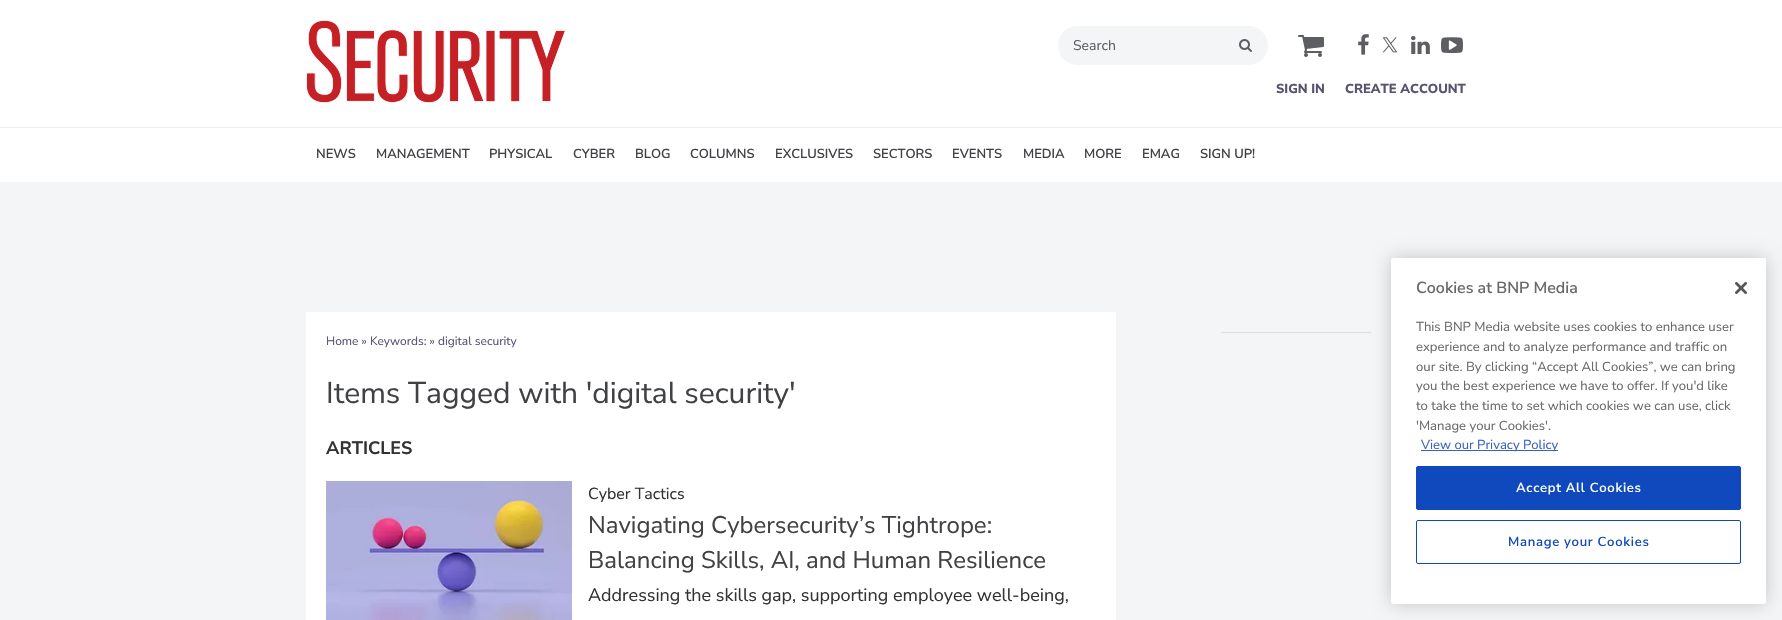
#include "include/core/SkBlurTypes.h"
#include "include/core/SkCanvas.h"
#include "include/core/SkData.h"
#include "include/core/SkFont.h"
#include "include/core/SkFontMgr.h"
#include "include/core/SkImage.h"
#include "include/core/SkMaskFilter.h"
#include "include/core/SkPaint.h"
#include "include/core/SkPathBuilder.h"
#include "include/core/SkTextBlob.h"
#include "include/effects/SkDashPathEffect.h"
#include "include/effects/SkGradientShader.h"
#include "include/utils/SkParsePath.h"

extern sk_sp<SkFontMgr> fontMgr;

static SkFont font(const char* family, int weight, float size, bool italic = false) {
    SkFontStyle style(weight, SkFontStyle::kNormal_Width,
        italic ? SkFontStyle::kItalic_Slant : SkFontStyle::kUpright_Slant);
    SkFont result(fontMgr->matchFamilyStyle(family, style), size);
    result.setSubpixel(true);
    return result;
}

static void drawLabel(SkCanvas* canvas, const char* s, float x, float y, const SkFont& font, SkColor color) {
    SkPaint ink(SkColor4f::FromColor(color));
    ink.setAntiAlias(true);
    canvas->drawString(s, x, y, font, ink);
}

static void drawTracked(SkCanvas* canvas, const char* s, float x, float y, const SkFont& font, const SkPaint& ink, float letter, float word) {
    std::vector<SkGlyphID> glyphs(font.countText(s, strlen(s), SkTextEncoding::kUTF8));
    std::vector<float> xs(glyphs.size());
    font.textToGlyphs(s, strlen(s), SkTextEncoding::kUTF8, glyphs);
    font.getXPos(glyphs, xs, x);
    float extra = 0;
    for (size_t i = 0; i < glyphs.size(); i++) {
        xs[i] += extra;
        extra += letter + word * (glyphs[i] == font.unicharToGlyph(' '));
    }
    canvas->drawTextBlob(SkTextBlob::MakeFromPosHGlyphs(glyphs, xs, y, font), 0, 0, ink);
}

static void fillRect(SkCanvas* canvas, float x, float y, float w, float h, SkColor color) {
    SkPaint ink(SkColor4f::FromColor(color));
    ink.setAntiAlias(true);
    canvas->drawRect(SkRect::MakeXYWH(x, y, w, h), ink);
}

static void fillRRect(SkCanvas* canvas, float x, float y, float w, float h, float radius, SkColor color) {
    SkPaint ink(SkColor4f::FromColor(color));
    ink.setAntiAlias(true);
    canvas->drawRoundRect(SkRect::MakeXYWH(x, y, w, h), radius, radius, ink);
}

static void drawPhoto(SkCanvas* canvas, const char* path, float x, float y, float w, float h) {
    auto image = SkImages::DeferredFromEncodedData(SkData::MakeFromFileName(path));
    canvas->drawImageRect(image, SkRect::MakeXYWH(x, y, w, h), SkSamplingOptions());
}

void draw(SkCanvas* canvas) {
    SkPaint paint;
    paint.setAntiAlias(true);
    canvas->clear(0xFFF4F5F6);
    fillRect(canvas, 0, 0, 1782, 182, 0xFFFFFFFF);
    drawPhoto(canvas, "assets/img1.png", 306, 20, 260, 83);
    fillRRect(canvas, 1058, 26, 210, 39, 19.5f, 0xFFF4F5F6);
    SkFont font1 = font("Nunito Sans", 400, 14);
    drawLabel(canvas, "Search", 1073, 50, font1, 0xFF5D5E62);
    drawPhoto(canvas, "assets/img2.png", 1239, 39, 13, 13);
    drawPhoto(canvas, "assets/img3.png", 1298, 35, 26, 22);
    drawPhoto(canvas, "assets/img4.png", 1358, 34, 11, 21);
    drawPhoto(canvas, "assets/img5.png", 1382, 37, 16, 16);
    drawPhoto(canvas, "assets/img6.png", 1411, 36, 19, 18);
    drawPhoto(canvas, "assets/img7.png", 1441, 37, 22, 16);
    SkFont font2 = font("Nunito Sans", 800, 13);
    drawLabel(canvas, "SIGN IN", 1276, 93, font2, 0xFF58526F);
    drawLabel(canvas, "CREATE ACCOUNT", 1345, 93, font2, 0xFF58526F);
    fillRect(canvas, 0, 127, 1782, 1, 0xFFEEEEEE);
    SkFont font3 = font("Nunito Sans", 600, 13);
    drawLabel(canvas, "NEWS", 316, 158, font3, 0xFF404144);
    drawLabel(canvas, "MANAGEMENT", 376, 158, font3, 0xFF404144);
    drawLabel(canvas, "PHYSICAL", 489, 158, font3, 0xFF404144);
    drawLabel(canvas, "CYBER", 573, 158, font3, 0xFF404144);
    drawLabel(canvas, "BLOG", 635, 158, font3, 0xFF404144);
    drawLabel(canvas, "COLUMNS", 690, 158, font3, 0xFF404144);
    drawLabel(canvas, "EXCLUSIVES", 775, 158, font3, 0xFF404144);
    drawLabel(canvas, "SECTORS", 873, 158, font3, 0xFF404144);
    drawLabel(canvas, "EVENTS", 952, 158, font3, 0xFF404144);
    drawLabel(canvas, "MEDIA", 1023, 158, font3, 0xFF404144);
    drawLabel(canvas, "MORE", 1084, 158, font3, 0xFF404144);
    drawLabel(canvas, "EMAG", 1142, 158, font3, 0xFF404144);
    drawLabel(canvas, "SIGN UP!", 1200, 158, font3, 0xFF404144);
    fillRect(canvas, 1221, 332, 150, 1, 0xFFDDDDDD);
    fillRect(canvas, 306, 312, 810, 308, 0xFFFFFFFF);
    SkFont font4 = font("Nunito Sans", 400, 12);
    drawLabel(canvas, "Home » Keywords: » digital security", 326, 345, font4, 0xFF58526F);
    SkFont font5 = font("Nunito Sans", 400, 30);
    drawLabel(canvas, "Items Tagged with 'digital security'", 326, 403, font5, 0xFF404144);
    SkFont font6 = font("Nunito Sans", 700, 18);
    drawLabel(canvas, "ARTICLES", 326, 454, font6, 0xFF333333);
    drawPhoto(canvas, "assets/img8.png", 326, 481, 246, 139);
    SkFont font7 = font("Nunito Sans", 400, 16);
    drawLabel(canvas, "Cyber Tactics", 588, 499, font7, 0xFF333333);
    SkFont font8 = font("Nunito Sans", 400, 24);
    drawLabel(canvas, "Navigating Cybersecurity’s Tightrope:", 588, 533, font8, 0xFF404144);
    drawLabel(canvas, "Balancing Skills, AI, and Human Resilience", 588, 568, font8, 0xFF404144);
    SkFont font9 = font("Nunito Sans", 400, 18);
    drawLabel(canvas, "Addressing the skills gap, supporting employee well-being,", 588, 601, font9, 0xFF333333);
    paint.setColor(0x33000000);
    paint.setMaskFilter(SkMaskFilter::MakeBlur(kNormal_SkBlurStyle, 9));
    canvas->drawRoundRect(SkRect::MakeXYWH(1391, 258, 375, 346), 2.5f, 2.5f, paint);
    paint.setMaskFilter(nullptr);
    fillRRect(canvas, 1391, 258, 375, 346, 2.5f, 0xFFFFFFFF);
    SkFont font10 = font("Nunito Sans", 600, 16);
    drawLabel(canvas, "Cookies at BNP Media", 1416, 293, font10, 0xFF696969);
    SkFont font11 = font("Nunito Sans", 400, 13.1f);
    drawLabel(canvas, "This BNP Media website uses cookies to enhance user", 1416, 331, font11, 0xFF696969);
    drawLabel(canvas, "experience and to analyze performance and traffic on", 1416, 351, font11, 0xFF696969);
    drawLabel(canvas, "our site. By clicking “Accept All Cookies”, we can bring", 1416, 371, font11, 0xFF696969);
    drawLabel(canvas, "you the best experience we have to offer. If you'd like", 1416, 390, font11, 0xFF696969);
    drawLabel(canvas, "to take the time to set which cookies we can use, click", 1416, 410, font11, 0xFF696969);
    drawLabel(canvas, "'Manage your Cookies'.", 1416, 430, font11, 0xFF696969);
    fillRect(canvas, 1421, 450, 137, 1, 0xFF3860BE);
    drawLabel(canvas, "View our Privacy Policy", 1421, 449, font11, 0xFF3860BE);
    drawPhoto(canvas, "assets/img9.png", 1735, 282, 12, 12);
    paint.setColor(0xFF0F49BD);
    canvas->drawRoundRect(SkRect::MakeXYWH(1416.5f, 466.5f, 324, 43), 1.5f, 1.5f, paint);
    paint.setStroke(true);
    paint.setStrokeWidth(1);
    canvas->drawRoundRect(SkRect::MakeXYWH(1416.5f, 466.5f, 324, 43), 1.5f, 1.5f, paint);
    SkFont font12 = font("Nunito Sans", 600, 13.1f);
    paint.setStroke(false);
    paint.setColor(0xFFFFFFFF);
    drawTracked(canvas, "Accept All Cookies", 1516, 492, font12, paint, 0.7f, 0);
    paint.setStroke(true);
    paint.setColor(0xFF0F49BD);
    canvas->drawRoundRect(SkRect::MakeXYWH(1416.5f, 520.5f, 324, 43), 1.5f, 1.5f, paint);
    paint.setStroke(false);
    drawTracked(canvas, "Manage your Cookies", 1508, 546, font12, paint, 0.7f, 0);
}
